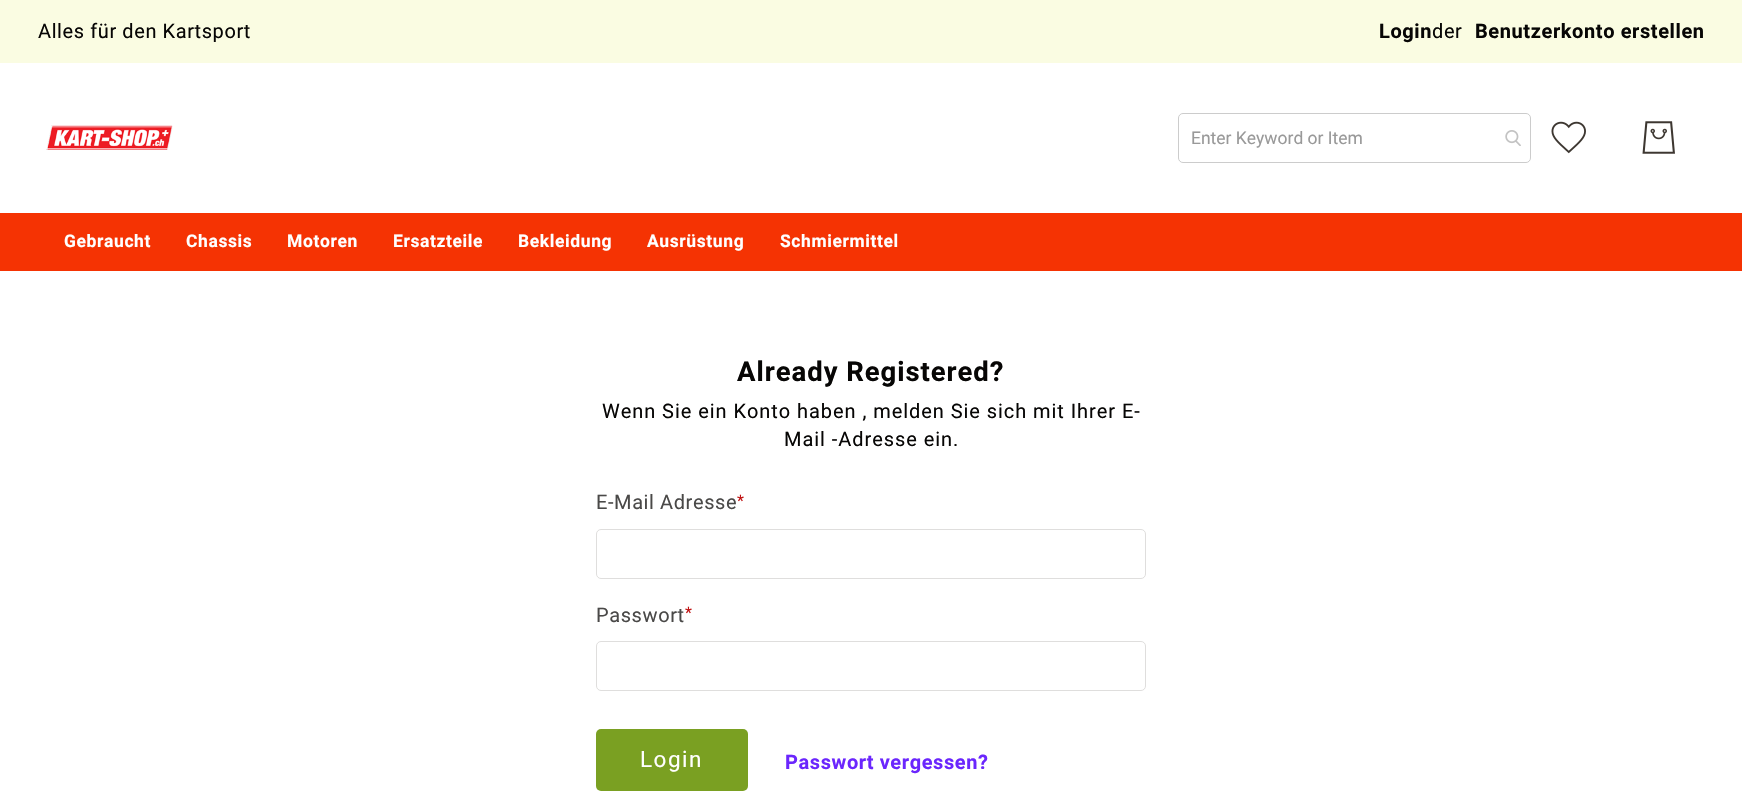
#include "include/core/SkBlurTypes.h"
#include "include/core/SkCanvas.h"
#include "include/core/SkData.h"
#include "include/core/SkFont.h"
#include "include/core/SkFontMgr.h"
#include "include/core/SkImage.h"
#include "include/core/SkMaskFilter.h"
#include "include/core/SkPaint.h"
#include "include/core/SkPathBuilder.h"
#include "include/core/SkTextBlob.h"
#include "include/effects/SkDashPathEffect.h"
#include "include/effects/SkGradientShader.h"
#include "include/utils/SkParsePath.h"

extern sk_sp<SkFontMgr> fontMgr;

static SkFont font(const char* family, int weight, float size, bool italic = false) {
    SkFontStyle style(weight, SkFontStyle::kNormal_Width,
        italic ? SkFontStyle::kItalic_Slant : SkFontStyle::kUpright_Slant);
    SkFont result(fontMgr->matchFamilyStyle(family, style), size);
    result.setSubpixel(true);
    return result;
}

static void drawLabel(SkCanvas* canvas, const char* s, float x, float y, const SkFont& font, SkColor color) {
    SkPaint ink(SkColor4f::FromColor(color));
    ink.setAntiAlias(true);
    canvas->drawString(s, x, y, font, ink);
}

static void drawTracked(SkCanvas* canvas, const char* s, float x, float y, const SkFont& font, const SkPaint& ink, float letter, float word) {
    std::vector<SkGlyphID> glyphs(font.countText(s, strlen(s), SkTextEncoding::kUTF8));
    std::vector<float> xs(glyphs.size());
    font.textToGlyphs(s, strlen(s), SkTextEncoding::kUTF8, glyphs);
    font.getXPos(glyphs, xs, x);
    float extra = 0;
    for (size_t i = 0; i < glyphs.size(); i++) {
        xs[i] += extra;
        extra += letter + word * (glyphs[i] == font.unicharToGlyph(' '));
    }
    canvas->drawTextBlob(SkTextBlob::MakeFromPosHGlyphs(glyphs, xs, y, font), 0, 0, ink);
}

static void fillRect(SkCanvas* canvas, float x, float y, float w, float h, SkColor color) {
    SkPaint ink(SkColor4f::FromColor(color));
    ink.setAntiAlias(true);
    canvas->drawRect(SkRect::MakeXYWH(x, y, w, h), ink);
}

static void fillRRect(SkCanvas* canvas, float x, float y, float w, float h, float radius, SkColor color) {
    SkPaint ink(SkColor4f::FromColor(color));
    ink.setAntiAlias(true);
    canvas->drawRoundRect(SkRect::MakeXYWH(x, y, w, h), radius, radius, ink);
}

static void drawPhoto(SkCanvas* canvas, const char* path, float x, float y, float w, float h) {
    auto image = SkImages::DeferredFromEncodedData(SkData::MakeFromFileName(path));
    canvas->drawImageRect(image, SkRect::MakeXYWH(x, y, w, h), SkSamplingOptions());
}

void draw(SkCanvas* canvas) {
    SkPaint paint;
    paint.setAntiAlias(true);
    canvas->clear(0xFFFFFFFF);
    fillRect(canvas, 0, 0, 1742, 63, 0xFFFAFCE2);
    SkFont font1 = font("Roboto", 400, 20);
    paint.setColor(0xFF070605);
    drawTracked(canvas, "Alles für den Kartsport", 38, 38, font1, paint, 0.6f, 0);
    SkFont font2 = font("Roboto", 700, 20);
    drawTracked(canvas, "Login", 1379, 38, font2, paint, 0.6f, 0);
    drawTracked(canvas, "der", 1432, 38, font1, paint, 0.6f, 0);
    drawTracked(canvas, "Benutzerkonto erstellen", 1475, 38, font2, paint, 0.6f, 0);
    drawPhoto(canvas, "assets/img1.png", 46, 125, 127, 25);
    paint.setStroke(true);
    paint.setStrokeWidth(1);
    paint.setColor(0xFFCCCCCC);
    canvas->drawRoundRect(SkRect::MakeXYWH(1178.5f, 113.5f, 352, 49), 4.5f, 4.5f, paint);
    SkFont font3 = font("Roboto", 400, 17.5f);
    drawLabel(canvas, "Enter Keyword or Item", 1191, 144, font3, 0xFF999999);
    drawPhoto(canvas, "assets/img2.png", 1505, 130, 16, 16);
    drawPhoto(canvas, "assets/img3.png", 1551, 121, 35, 33);
    drawPhoto(canvas, "assets/img4.png", 1642, 121, 33, 33);
    fillRect(canvas, 0, 213, 1742, 58, 0xFFF53303);
    SkFont font4 = font("Roboto", 700, 17.5f);
    paint.setStroke(false);
    paint.setColor(0xFFFFFFFF);
    drawTracked(canvas, "Gebraucht", 64, 247, font4, paint, 0.6f, 0);
    drawTracked(canvas, "Chassis", 186, 247, font4, paint, 0.6f, 0);
    drawTracked(canvas, "Motoren", 287, 247, font4, paint, 0.6f, 0);
    drawTracked(canvas, "Ersatzteile", 393, 247, font4, paint, 0.6f, 0);
    drawTracked(canvas, "Bekleidung", 518, 247, font4, paint, 0.6f, 0);
    drawTracked(canvas, "Ausrüstung", 647, 247, font4, paint, 0.6f, 0);
    drawTracked(canvas, "Schmiermittel", 780, 247, font4, paint, 0.6f, 0);
    SkFont font5 = font("Roboto", 700, 27.5f);
    paint.setColor(0xFF070605);
    drawTracked(canvas, "Already Registered?", 737, 381, font5, paint, 0.95f, 0);
    drawTracked(canvas, "Wenn Sie ein Konto haben , melden Sie sich mit Ihrer E-", 602, 418, font1, paint, 0.95f, 0);
    drawTracked(canvas, "Mail -Adresse ein.", 784, 446, font1, paint, 0.95f, 0);
    paint.setColor(0xFF4A4948);
    drawTracked(canvas, "E-Mail Adresse", 596, 509, font1, paint, 0.6f, 0);
    SkFont font6 = font("Roboto", 400, 16);
    paint.setColor(0xFFC01313);
    drawTracked(canvas, "*", 737, 506, font6, paint, 0.6f, 0);
    paint.setStroke(true);
    paint.setColor(0xFFDFDEDD);
    canvas->drawRoundRect(SkRect::MakeXYWH(596.5f, 529.5f, 549, 49), 4.5f, 4.5f, paint);
    paint.setStroke(false);
    paint.setColor(0xFF4A4948);
    drawTracked(canvas, "Passwort", 596, 622, font1, paint, 0.6f, 0);
    paint.setColor(0xFFC01313);
    drawTracked(canvas, "*", 685, 618, font6, paint, 0.6f, 0);
    paint.setStroke(true);
    paint.setColor(0xFFDFDEDD);
    canvas->drawRoundRect(SkRect::MakeXYWH(596.5f, 641.5f, 549, 49), 4.5f, 4.5f, paint);
    fillRRect(canvas, 596, 729, 152, 62, 5, 0xFF7AA022);
    SkFont font7 = font("Roboto", 400, 22.5f);
    paint.setStroke(false);
    paint.setColor(0xFFFFFFFF);
    drawTracked(canvas, "Login", 640, 767, font7, paint, 1.5f, 0);
    paint.setColor(0xFF6B26FD);
    drawTracked(canvas, "Passwort vergessen?", 785, 769, font2, paint, 0.6f, 0);
}
